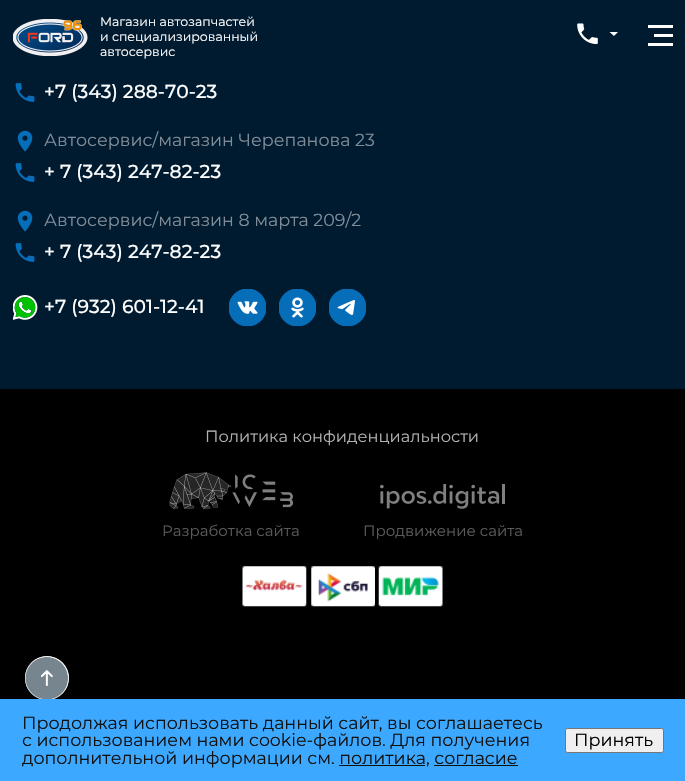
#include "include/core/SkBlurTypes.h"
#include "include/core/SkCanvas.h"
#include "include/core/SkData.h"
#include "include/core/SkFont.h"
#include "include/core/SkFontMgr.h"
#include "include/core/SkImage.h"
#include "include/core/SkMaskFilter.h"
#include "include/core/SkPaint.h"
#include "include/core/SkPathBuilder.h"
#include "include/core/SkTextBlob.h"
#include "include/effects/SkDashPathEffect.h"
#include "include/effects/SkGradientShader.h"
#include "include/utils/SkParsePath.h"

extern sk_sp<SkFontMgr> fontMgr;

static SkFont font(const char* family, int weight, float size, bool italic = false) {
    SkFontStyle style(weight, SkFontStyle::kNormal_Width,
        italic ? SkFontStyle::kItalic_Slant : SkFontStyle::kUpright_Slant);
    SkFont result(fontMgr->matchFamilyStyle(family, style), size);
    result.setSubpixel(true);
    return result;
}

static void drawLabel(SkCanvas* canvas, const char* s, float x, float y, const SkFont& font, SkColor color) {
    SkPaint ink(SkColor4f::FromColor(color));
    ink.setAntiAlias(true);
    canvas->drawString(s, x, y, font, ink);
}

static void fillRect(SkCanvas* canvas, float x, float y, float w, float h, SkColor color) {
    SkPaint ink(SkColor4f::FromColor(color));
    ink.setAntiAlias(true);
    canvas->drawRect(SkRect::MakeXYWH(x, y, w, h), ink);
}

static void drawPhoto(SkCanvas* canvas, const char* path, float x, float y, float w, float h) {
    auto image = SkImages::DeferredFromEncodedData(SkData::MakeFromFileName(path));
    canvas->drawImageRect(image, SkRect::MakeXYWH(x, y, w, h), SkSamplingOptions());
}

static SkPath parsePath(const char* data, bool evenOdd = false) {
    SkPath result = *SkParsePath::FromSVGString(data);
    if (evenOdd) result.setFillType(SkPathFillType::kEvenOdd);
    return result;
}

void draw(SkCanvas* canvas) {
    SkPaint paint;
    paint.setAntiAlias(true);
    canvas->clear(0xFF001B30);
    drawPhoto(canvas, "assets/img1.png", 13, 19, 75, 37);
    SkFont font1 = font("Montserrat", 400, 12.5f);
    drawLabel(canvas, "Магазин автозапчастей", 100, 26, font1, 0xFFFFFFFF);
    drawLabel(canvas, "и специализированный", 100, 41, font1, 0xFFFFFFFF);
    drawLabel(canvas, "автосервис", 100, 56, font1, 0xFFFFFFFF);
    drawPhoto(canvas, "assets/img2.png", 577, 23, 21, 22);
    paint.setColor(0xFFFFFFFF);
    canvas->drawPath(parsePath("M609.5 32L614 36L618 32Z"), paint);
    fillRect(canvas, 648, 25, 25, 3, 0xFFFFFFFF);
    fillRect(canvas, 654, 34, 19, 3, 0xFFFFFFFF);
    fillRect(canvas, 648, 43, 25, 3, 0xFFFFFFFF);
    drawPhoto(canvas, "assets/img3.png", 15, 83, 20, 19);
    SkFont font2 = font("Montserrat", 500, 18.75f);
    drawLabel(canvas, "+7 (343) 288-70-23", 44, 98, font2, 0xFFFFFFFF);
    drawPhoto(canvas, "assets/img4.png", 17, 130, 16, 22);
    SkFont font3 = font("Montserrat", 400, 17.5f);
    drawLabel(canvas, "Автосервис/магазин Черепанова 23", 44, 146, font3, 0xFF808D98);
    drawPhoto(canvas, "assets/img3.png", 15, 163, 20, 19);
    drawLabel(canvas, "+ 7 (343) 247-82-23", 44, 178, font2, 0xFFFFFFFF);
    drawPhoto(canvas, "assets/img4.png", 17, 210, 16, 22);
    drawLabel(canvas, "Автосервис/магазин 8 марта 209/2", 44, 226, font3, 0xFF808D98);
    drawPhoto(canvas, "assets/img3.png", 15, 243, 20, 19);
    drawLabel(canvas, "+ 7 (343) 247-82-23", 44, 258, font2, 0xFFFFFFFF);
    drawPhoto(canvas, "assets/img5.png", 13, 295, 25, 25);
    drawLabel(canvas, "+7 (932) 601-12-41", 44, 313, font2, 0xFFFFFFFF);
    drawPhoto(canvas, "assets/img6.png", 229, 289, 37, 37);
    drawPhoto(canvas, "assets/img7.png", 279, 289, 37, 37);
    drawPhoto(canvas, "assets/img8.png", 329, 289, 37, 37);
    fillRect(canvas, 0, 389, 685, 310, 0xFF000000);
    SkFont font4 = font("Montserrat", 400, 16.25f);
    drawLabel(canvas, "Политика конфиденциальности", 205, 442, font4, 0xFFB3B3B3);
    drawPhoto(canvas, "assets/img9.png", 169, 472, 124, 37);
    SkFont font5 = font("Montserrat", 400, 15);
    drawLabel(canvas, "Разработка сайта", 162, 536, font5, 0xFF5A5A5A);
    drawPhoto(canvas, "assets/img10.png", 380, 484, 125, 25);
    drawLabel(canvas, "Продвижение сайта", 363, 536, font5, 0xFF5A5A5A);
    drawPhoto(canvas, "assets/img11.png", 242, 566, 65, 41);
    drawPhoto(canvas, "assets/img12.png", 311, 566, 64, 41);
    drawPhoto(canvas, "assets/img13.png", 378, 566, 65, 41);
    paint.setColor(0xFFEFEFEF);
    canvas->drawCircle(47, 678, 22, paint);
    drawPhoto(canvas, "assets/img14.png", 25, 656, 44, 43);
    fillRect(canvas, 0, 699, 685, 82, 0xFF3DA8FF);
    drawLabel(canvas, "Продолжая использовать данный сайт, вы соглашаетесь", 22, 729, font3, 0xFF111111);
    drawLabel(canvas, "с использованием нами cookie-файлов. Для получения", 22, 746, font3, 0xFF111111);
    drawLabel(canvas, "дополнительной информации см. политика, согласие", 22, 764, font3, 0xFF111111);
    fillRect(canvas, 339, 765, 86, 1, 0xFF111111);
    fillRect(canvas, 434, 765, 84, 1, 0xFF111111);
    canvas->drawRoundRect(SkRect::MakeXYWH(565.5f, 728.5f, 98, 24), 2, 2, paint);
    paint.setStroke(true);
    paint.setStrokeWidth(1);
    paint.setColor(0xFF767676);
    canvas->drawRoundRect(SkRect::MakeXYWH(565.5f, 728.5f, 98, 24), 2, 2, paint);
    drawLabel(canvas, "Принять", 574, 746, font3, 0xFF000000);
}
